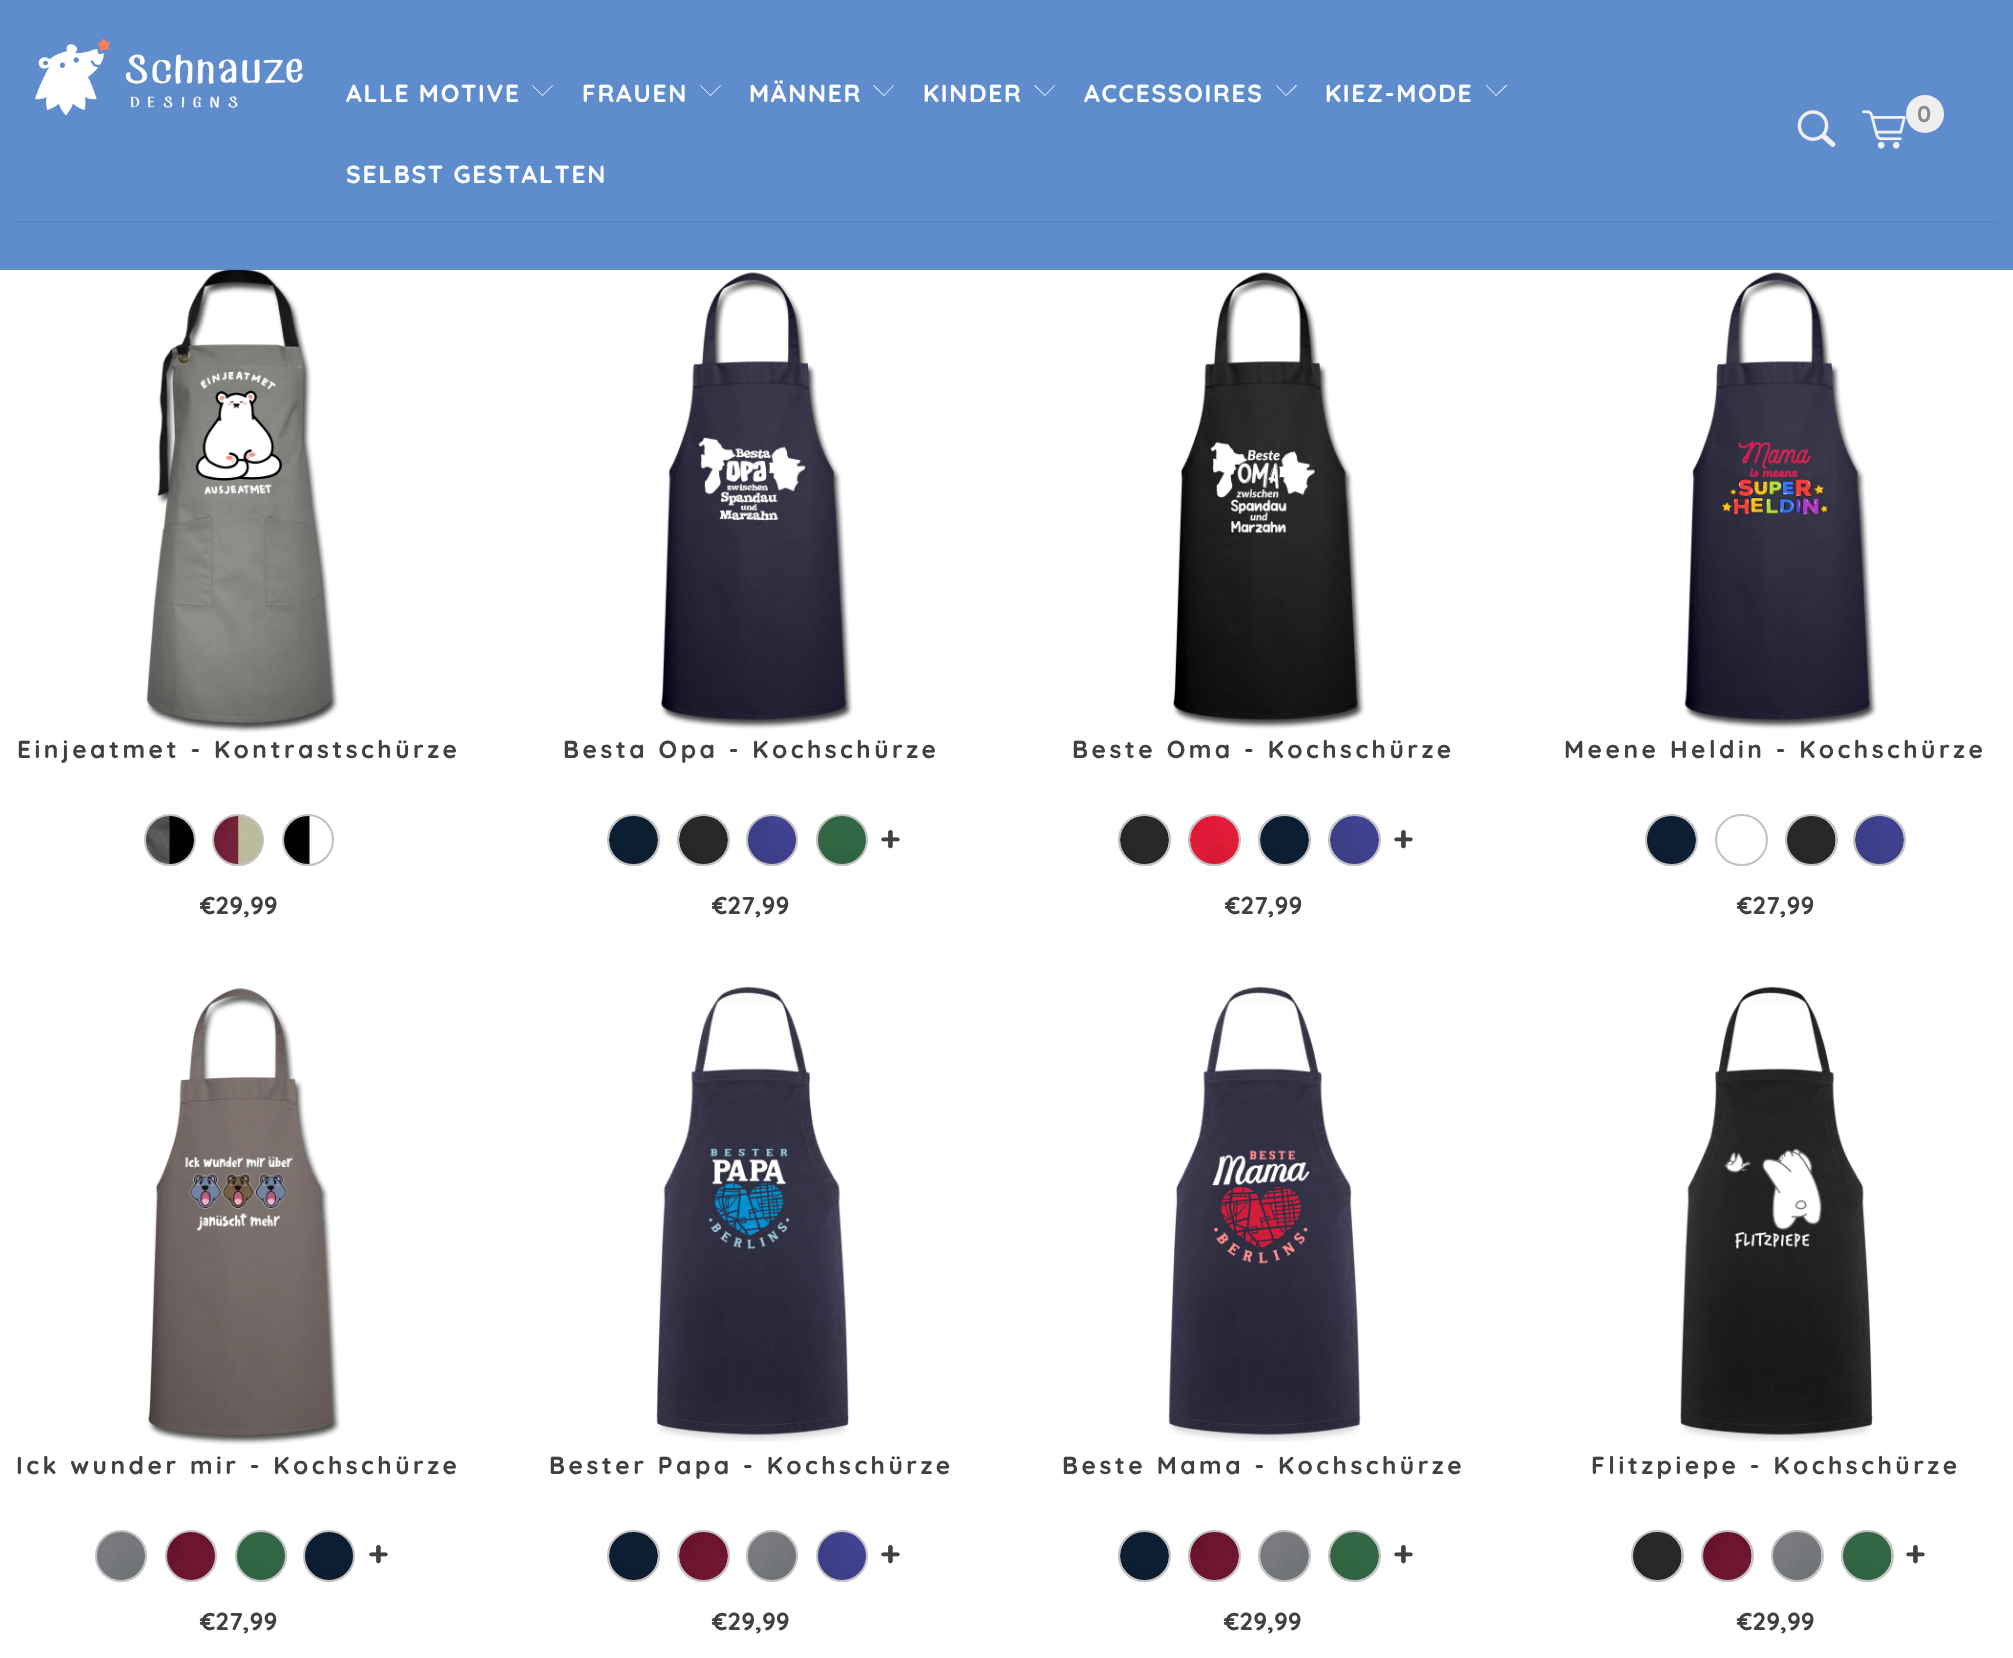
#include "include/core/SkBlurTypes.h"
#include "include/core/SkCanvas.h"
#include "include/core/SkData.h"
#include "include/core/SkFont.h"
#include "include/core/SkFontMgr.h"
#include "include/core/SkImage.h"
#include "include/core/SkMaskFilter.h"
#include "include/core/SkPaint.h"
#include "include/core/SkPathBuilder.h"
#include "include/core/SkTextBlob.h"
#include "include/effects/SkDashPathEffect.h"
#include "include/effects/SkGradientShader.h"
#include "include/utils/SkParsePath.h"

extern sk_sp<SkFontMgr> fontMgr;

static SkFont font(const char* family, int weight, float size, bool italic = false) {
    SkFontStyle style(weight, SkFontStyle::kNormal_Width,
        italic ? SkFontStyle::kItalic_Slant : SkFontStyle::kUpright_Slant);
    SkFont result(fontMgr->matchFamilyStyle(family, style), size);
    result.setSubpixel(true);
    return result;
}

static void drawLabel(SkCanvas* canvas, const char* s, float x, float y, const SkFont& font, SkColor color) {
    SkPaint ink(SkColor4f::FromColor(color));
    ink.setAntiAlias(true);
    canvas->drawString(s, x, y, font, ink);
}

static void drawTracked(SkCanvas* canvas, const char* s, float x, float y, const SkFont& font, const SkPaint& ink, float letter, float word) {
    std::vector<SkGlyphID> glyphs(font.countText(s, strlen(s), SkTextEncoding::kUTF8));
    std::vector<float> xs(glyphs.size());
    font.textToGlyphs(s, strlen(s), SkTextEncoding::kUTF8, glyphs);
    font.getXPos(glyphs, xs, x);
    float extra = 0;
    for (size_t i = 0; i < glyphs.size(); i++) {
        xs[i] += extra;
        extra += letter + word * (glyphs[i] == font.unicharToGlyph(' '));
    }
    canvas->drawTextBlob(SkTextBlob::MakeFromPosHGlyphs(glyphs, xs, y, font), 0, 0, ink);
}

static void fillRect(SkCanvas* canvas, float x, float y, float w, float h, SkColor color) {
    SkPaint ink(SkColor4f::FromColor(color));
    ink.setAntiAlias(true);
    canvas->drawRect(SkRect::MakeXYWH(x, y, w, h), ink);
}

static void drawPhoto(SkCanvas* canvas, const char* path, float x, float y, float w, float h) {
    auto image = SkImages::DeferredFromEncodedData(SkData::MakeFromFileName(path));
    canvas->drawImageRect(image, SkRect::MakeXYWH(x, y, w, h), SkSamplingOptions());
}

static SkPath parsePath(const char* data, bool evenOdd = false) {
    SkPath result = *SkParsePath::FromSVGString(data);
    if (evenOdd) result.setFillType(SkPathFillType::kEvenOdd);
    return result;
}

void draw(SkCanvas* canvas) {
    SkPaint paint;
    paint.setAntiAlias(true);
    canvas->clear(0xFFFFFFFF);
    fillRect(canvas, 18, 221, 1979, 2, 0xFFAAAAAA);
    drawPhoto(canvas, "assets/img4.png", 146, 268, 193, 465);
    fillRect(canvas, 0, 0, 2013, 270, 0xE64E80C7);
    drawPhoto(canvas, "assets/img1.png", 35, 38, 268, 78);
    SkFont font1 = font("Quicksand", 700, 24.5f);
    paint.setColor(0xFFFFFFFF);
    drawTracked(canvas, "ALLE MOTIVE", 346, 102, font1, paint, 1.75f, 0);
    canvas->drawPath(parsePath("M542.5 96L532 85.5L532.5 85L542.5 95L552.5 85L553 85.5Z"), paint);
    drawTracked(canvas, "FRAUEN", 582, 102, font1, paint, 1.75f, 0);
    canvas->drawPath(parsePath("M710.5 96L700 85.5L700.5 85L710.5 95L720.5 85L721 85.5Z"), paint);
    drawTracked(canvas, "MÄNNER", 749, 102, font1, paint, 1.75f, 0);
    canvas->drawPath(parsePath("M884 96L873 85.5L874 85L884 95L893.5 85L894 85.5Z"), paint);
    drawTracked(canvas, "KINDER", 923, 102, font1, paint, 1.75f, 0);
    canvas->drawPath(parsePath("M1045 96L1034 85.5L1035 85L1045 95L1054.5 85L1055 85.5Z"), paint);
    drawTracked(canvas, "ACCESSOIRES", 1084, 102, font1, paint, 1.75f, 0);
    canvas->drawPath(parsePath("M1286 96L1276 85.5L1276.5 85L1286 95L1296 85L1297 85.5Z"), paint);
    drawTracked(canvas, "KIEZ-MODE", 1325, 102, font1, paint, 1.75f, 0);
    canvas->drawPath(parsePath("M1496 96L1486 85.5L1486.5 85L1496 95L1506 85L1507 85.5Z"), paint);
    drawTracked(canvas, "SELBST GESTALTEN", 346, 183, font1, paint, 1.75f, 0);
    drawPhoto(canvas, "assets/img2.png", 1797, 110, 39, 37);
    drawPhoto(canvas, "assets/img3.png", 1862, 110, 44, 39);
    paint.setColor(0xFFEFEFEF);
    canvas->drawCircle(1925, 114, 19, paint);
    SkFont font2 = font("Quicksand", 700, 23);
    paint.setColor(0xFF8B8B8B);
    drawTracked(canvas, "0", 1917, 122, font2, paint, 1.75f, 0);
    paint.setColor(0xFF414141);
    drawTracked(canvas, "Einjeatmet - Kontrastschürze", 17, 758, font1, paint, 3.5f, 0);
    drawPhoto(canvas, "assets/img5.png", 146, 816, 48, 48);
    paint.setStroke(true);
    paint.setStrokeWidth(2);
    paint.setColor(0xFFC1C1C1);
    canvas->drawCircle(170, 840, 25, paint);
    drawPhoto(canvas, "assets/img6.png", 214, 816, 48, 48);
    canvas->drawCircle(238, 840, 25, paint);
    drawPhoto(canvas, "assets/img7.png", 284, 816, 28, 48);
    canvas->drawCircle(308, 840, 25, paint);
    drawLabel(canvas, "€29,99", 200, 914, font1, 0xFF414141);
    drawPhoto(canvas, "assets/img8.png", 660, 272, 193, 457);
    paint.setStroke(false);
    paint.setColor(0xFF414141);
    drawTracked(canvas, "Besta Opa - Kochschürze", 563, 758, font1, paint, 3.5f, 0);
    drawPhoto(canvas, "assets/img9.png", 609, 816, 49, 48);
    paint.setStroke(true);
    paint.setColor(0xFFC1C1C1);
    canvas->drawRoundRect(SkRect::MakeXYWH(608, 815, 51, 50), 25, 25, paint);
    drawPhoto(canvas, "assets/img10.png", 679, 816, 49, 48);
    canvas->drawRoundRect(SkRect::MakeXYWH(678, 815, 51, 50), 25, 25, paint);
    drawPhoto(canvas, "assets/img11.png", 748, 816, 48, 48);
    canvas->drawCircle(772, 840, 25, paint);
    drawPhoto(canvas, "assets/img12.png", 818, 816, 48, 48);
    canvas->drawCircle(842, 840, 25, paint);
    SkFont font3 = font("Quicksand", 700, 35);
    drawLabel(canvas, "+", 880, 851, font3, 0xFF414141);
    drawLabel(canvas, "€27,99", 712, 914, font1, 0xFF414141);
    drawPhoto(canvas, "assets/img13.png", 1173, 272, 192, 457);
    paint.setStroke(false);
    paint.setColor(0xFF414141);
    drawTracked(canvas, "Beste Oma - Kochschürze", 1072, 758, font1, paint, 3.5f, 0);
    drawPhoto(canvas, "assets/img10.png", 1120, 816, 49, 48);
    paint.setStroke(true);
    paint.setColor(0xFFC1C1C1);
    canvas->drawRoundRect(SkRect::MakeXYWH(1119, 815, 51, 50), 25, 25, paint);
    drawPhoto(canvas, "assets/img14.png", 1190, 816, 49, 48);
    canvas->drawRoundRect(SkRect::MakeXYWH(1189, 815, 51, 50), 25, 25, paint);
    drawPhoto(canvas, "assets/img15.png", 1260, 816, 49, 48);
    canvas->drawRoundRect(SkRect::MakeXYWH(1259, 815, 51, 50), 25, 25, paint);
    drawPhoto(canvas, "assets/img16.png", 1330, 816, 49, 48);
    canvas->drawRoundRect(SkRect::MakeXYWH(1329, 815, 51, 50), 25, 25, paint);
    drawLabel(canvas, "+", 1393, 851, font3, 0xFF414141);
    drawLabel(canvas, "€27,99", 1225, 914, font1, 0xFF414141);
    drawPhoto(canvas, "assets/img17.png", 1684, 272, 193, 457);
    paint.setStroke(false);
    paint.setColor(0xFF414141);
    drawTracked(canvas, "Meene Heldin - Kochschürze", 1564, 758, font1, paint, 3.5f, 0);
    paint.setColor(0xFF000080);
    canvas->drawCircle(1671.5f, 840.5f, 24.5f, paint);
    drawPhoto(canvas, "assets/img18.png", 1647, 816, 49, 48);
    paint.setStroke(true);
    paint.setColor(0xFFC1C1C1);
    canvas->drawRoundRect(SkRect::MakeXYWH(1646, 815, 51, 50), 25, 25, paint);
    canvas->drawRoundRect(SkRect::MakeXYWH(1716, 815, 51, 50), 25, 25, paint);
    drawPhoto(canvas, "assets/img19.png", 1787, 816, 49, 48);
    canvas->drawRoundRect(SkRect::MakeXYWH(1786, 815, 51, 50), 25, 25, paint);
    drawPhoto(canvas, "assets/img16.png", 1855, 816, 49, 48);
    canvas->drawRoundRect(SkRect::MakeXYWH(1854, 815, 51, 50), 25, 25, paint);
    drawLabel(canvas, "€27,99", 1737, 914, font1, 0xFF414141);
    drawPhoto(canvas, "assets/img20.png", 148, 988, 192, 457);
    paint.setStroke(false);
    paint.setColor(0xFF414141);
    drawTracked(canvas, "Ick wunder mir - Kochschürze", 16, 1474, font1, paint, 3.5f, 0);
    drawPhoto(canvas, "assets/img21.png", 97, 1532, 48, 48);
    paint.setStroke(true);
    paint.setColor(0xFFC1C1C1);
    canvas->drawCircle(121, 1556, 25, paint);
    drawPhoto(canvas, "assets/img22.png", 167, 1532, 48, 48);
    canvas->drawCircle(191, 1556, 25, paint);
    drawPhoto(canvas, "assets/img23.png", 237, 1532, 48, 48);
    canvas->drawCircle(261, 1556, 25, paint);
    drawPhoto(canvas, "assets/img24.png", 305, 1532, 48, 48);
    canvas->drawCircle(329, 1556, 25, paint);
    drawLabel(canvas, "+", 368, 1566, font3, 0xFF414141);
    drawLabel(canvas, "€27,99", 200, 1630, font1, 0xFF414141);
    drawPhoto(canvas, "assets/img25.png", 656, 986, 194, 456);
    paint.setStroke(false);
    paint.setColor(0xFF414141);
    drawTracked(canvas, "Bester Papa - Kochschürze", 549, 1474, font1, paint, 3.5f, 0);
    drawPhoto(canvas, "assets/img26.png", 609, 1532, 49, 48);
    paint.setStroke(true);
    paint.setColor(0xFFC1C1C1);
    canvas->drawRoundRect(SkRect::MakeXYWH(608, 1531, 51, 50), 25, 25, paint);
    drawPhoto(canvas, "assets/img27.png", 679, 1532, 49, 48);
    canvas->drawRoundRect(SkRect::MakeXYWH(678, 1531, 51, 50), 25, 25, paint);
    drawPhoto(canvas, "assets/img28.png", 748, 1532, 48, 48);
    canvas->drawCircle(772, 1556, 25, paint);
    drawPhoto(canvas, "assets/img29.png", 818, 1532, 48, 48);
    canvas->drawCircle(842, 1556, 25, paint);
    drawLabel(canvas, "+", 880, 1566, font3, 0xFF414141);
    drawLabel(canvas, "€29,99", 712, 1630, font1, 0xFF414141);
    drawPhoto(canvas, "assets/img30.png", 1168, 986, 193, 456);
    paint.setStroke(false);
    paint.setColor(0xFF414141);
    drawTracked(canvas, "Beste Mama - Kochschürze", 1062, 1474, font1, paint, 3.5f, 0);
    drawPhoto(canvas, "assets/img26.png", 1120, 1532, 49, 48);
    paint.setStroke(true);
    paint.setColor(0xFFC1C1C1);
    canvas->drawRoundRect(SkRect::MakeXYWH(1119, 1531, 51, 50), 25, 25, paint);
    drawPhoto(canvas, "assets/img27.png", 1190, 1532, 49, 48);
    canvas->drawRoundRect(SkRect::MakeXYWH(1189, 1531, 51, 50), 25, 25, paint);
    drawPhoto(canvas, "assets/img31.png", 1260, 1532, 49, 48);
    canvas->drawRoundRect(SkRect::MakeXYWH(1259, 1531, 51, 50), 25, 25, paint);
    drawPhoto(canvas, "assets/img32.png", 1330, 1532, 49, 48);
    canvas->drawRoundRect(SkRect::MakeXYWH(1329, 1531, 51, 50), 25, 25, paint);
    drawLabel(canvas, "+", 1393, 1566, font3, 0xFF414141);
    drawLabel(canvas, "€29,99", 1224, 1630, font1, 0xFF414141);
    drawPhoto(canvas, "assets/img33.png", 1679, 986, 194, 456);
    paint.setStroke(false);
    paint.setColor(0xFF414141);
    drawTracked(canvas, "Flitzpiepe - Kochschürze", 1591, 1474, font1, paint, 3.5f, 0);
    drawPhoto(canvas, "assets/img34.png", 1633, 1532, 49, 48);
    paint.setStroke(true);
    paint.setColor(0xFFC1C1C1);
    canvas->drawRoundRect(SkRect::MakeXYWH(1632, 1531, 51, 50), 25, 25, paint);
    drawPhoto(canvas, "assets/img35.png", 1703, 1532, 49, 48);
    canvas->drawRoundRect(SkRect::MakeXYWH(1702, 1531, 51, 50), 25, 25, paint);
    drawPhoto(canvas, "assets/img36.png", 1773, 1532, 49, 48);
    canvas->drawRoundRect(SkRect::MakeXYWH(1772, 1531, 51, 50), 25, 25, paint);
    drawPhoto(canvas, "assets/img37.png", 1843, 1532, 49, 48);
    canvas->drawRoundRect(SkRect::MakeXYWH(1842, 1531, 51, 50), 25, 25, paint);
    drawLabel(canvas, "+", 1905, 1566, font3, 0xFF414141);
    drawLabel(canvas, "€29,99", 1737, 1630, font1, 0xFF414141);
}
